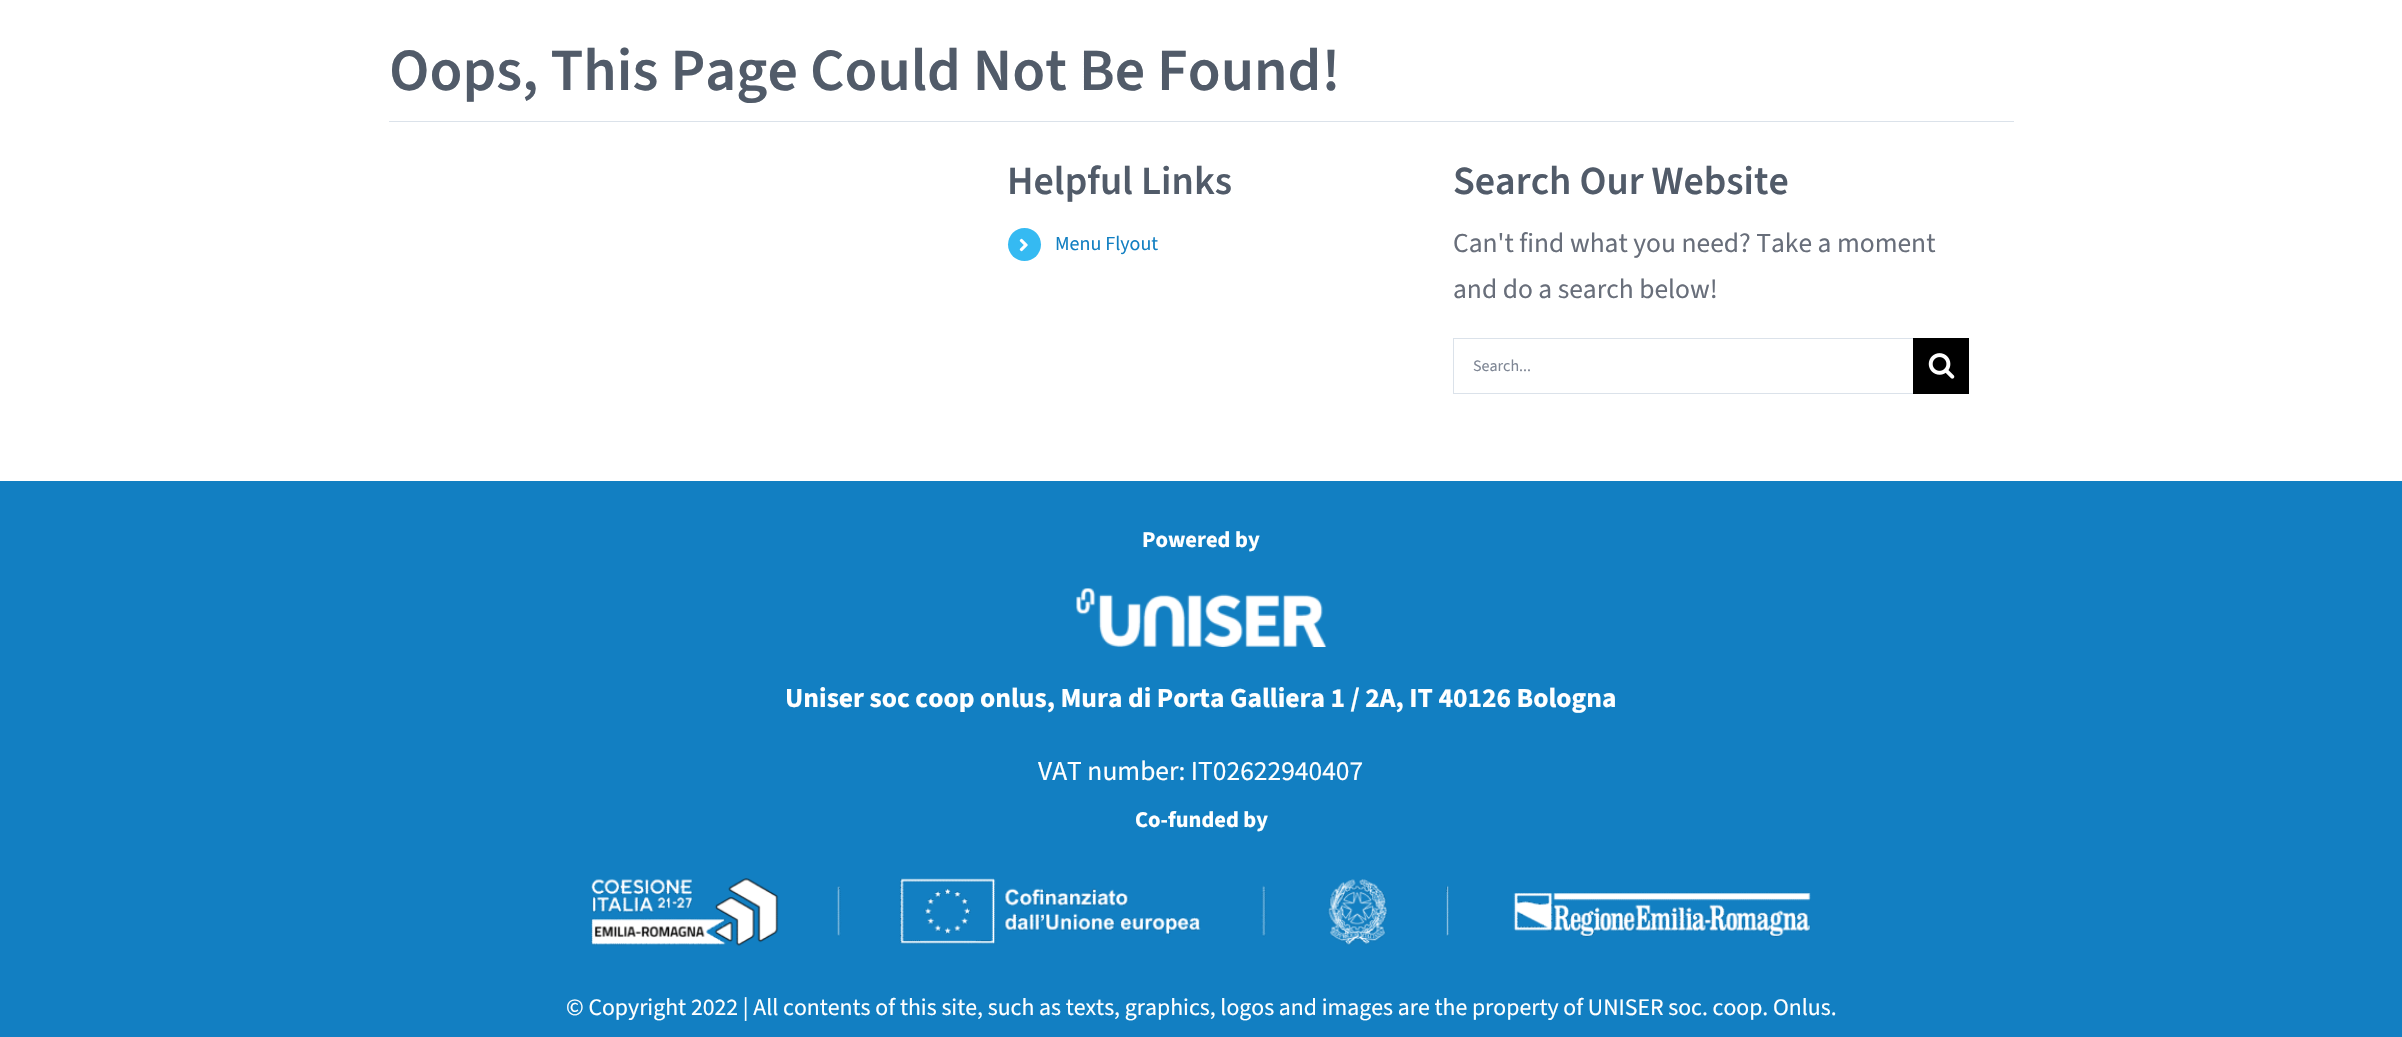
#include "include/core/SkBlurTypes.h"
#include "include/core/SkCanvas.h"
#include "include/core/SkData.h"
#include "include/core/SkFont.h"
#include "include/core/SkFontMgr.h"
#include "include/core/SkImage.h"
#include "include/core/SkMaskFilter.h"
#include "include/core/SkPaint.h"
#include "include/core/SkPathBuilder.h"
#include "include/core/SkTextBlob.h"
#include "include/effects/SkDashPathEffect.h"
#include "include/effects/SkGradientShader.h"
#include "include/utils/SkParsePath.h"

extern sk_sp<SkFontMgr> fontMgr;

static SkFont font(const char* family, int weight, float size, bool italic = false) {
    SkFontStyle style(weight, SkFontStyle::kNormal_Width,
        italic ? SkFontStyle::kItalic_Slant : SkFontStyle::kUpright_Slant);
    SkFont result(fontMgr->matchFamilyStyle(family, style), size);
    result.setSubpixel(true);
    return result;
}

static void drawLabel(SkCanvas* canvas, const char* s, float x, float y, const SkFont& font, SkColor color) {
    SkPaint ink(SkColor4f::FromColor(color));
    ink.setAntiAlias(true);
    canvas->drawString(s, x, y, font, ink);
}

static void fillRect(SkCanvas* canvas, float x, float y, float w, float h, SkColor color) {
    SkPaint ink(SkColor4f::FromColor(color));
    ink.setAntiAlias(true);
    canvas->drawRect(SkRect::MakeXYWH(x, y, w, h), ink);
}

static void drawPhoto(SkCanvas* canvas, const char* path, float x, float y, float w, float h) {
    auto image = SkImages::DeferredFromEncodedData(SkData::MakeFromFileName(path));
    canvas->drawImageRect(image, SkRect::MakeXYWH(x, y, w, h), SkSamplingOptions());
}

void draw(SkCanvas* canvas) {
    SkPaint paint;
    paint.setAntiAlias(true);
    canvas->clear(0xFFFFFFFF);
    fillRect(canvas, 389, 121, 1625, 1, 0xFFDBE2EA);
    SkFont font1 = font("Source Sans 3", 600, 60);
    drawLabel(canvas, "Oops, This Page Could Not Be Found!", 389, 90, font1, 0xFF515B69);
    SkFont font2 = font("Source Sans 3", 600, 40);
    drawLabel(canvas, "Helpful Links", 1007, 194, font2, 0xFF515B69);
    paint.setColor(0xFF35BAF2);
    canvas->drawCircle(1024.5f, 244.5f, 16.5f, paint);
    drawPhoto(canvas, "assets/img1.png", 1019, 238, 9, 14);
    SkFont font3 = font("Source Sans 3", 400, 20);
    drawLabel(canvas, "Menu Flyout", 1055, 250, font3, 0xFF127FC2);
    drawLabel(canvas, "Search Our Website", 1453, 194, font2, 0xFF515B69);
    SkFont font4 = font("Source Sans 3", 400, 27.5f);
    drawLabel(canvas, "Can't find what you need? Take a moment", 1453, 252, font4, 0xFF686E7A);
    drawLabel(canvas, "and do a search below!", 1453, 298, font4, 0xFF686E7A);
    fillRect(canvas, 1453, 338, 460, 1, 0xFFDBE2EA);
    fillRect(canvas, 1453, 393, 460, 1, 0xFFDBE2EA);
    fillRect(canvas, 1453, 338, 1, 56, 0xFFDBE2EA);
    SkFont font5 = font("Source Sans 3", 400, 16);
    drawLabel(canvas, "Search...", 1473, 371, font5, 0xFF7F8795);
    fillRect(canvas, 1913, 338, 56, 56, 0xFF000000);
    drawPhoto(canvas, "assets/img2.png", 1928, 353, 27, 26);
    fillRect(canvas, 0, 481, 2402, 556, 0xFF127FC2);
    SkFont font6 = font("Source Sans 3", 700, 22.5f);
    drawLabel(canvas, "Powered by", 1142, 547, font6, 0xFFFFFFFF);
    drawPhoto(canvas, "assets/img3.png", 1076, 588, 251, 59);
    SkFont font7 = font("Source Sans 3", 700, 27.5f);
    drawLabel(canvas, "Uniser soc coop onlus, Mura di Porta Galliera 1 / 2A, IT 40126 Bologna", 785, 707, font7, 0xFFFFFFFF);
    drawLabel(canvas, "VAT number: IT02622940407", 1038, 780, font4, 0xFFFFFFFF);
    drawLabel(canvas, "Co-funded by", 1135, 827, font6, 0xFFFFFFFF);
    drawPhoto(canvas, "assets/img4.png", 591, 878, 1220, 68);
    SkFont font8 = font("Source Sans 3", 400, 23.75f);
    drawLabel(canvas, "© Copyright 2022 | All contents of this site, such as texts, graphics, logos and images are the property of UNISER soc. coop. Onlus.", 566, 1015, font8, 0xFFFFFFFF);
}
